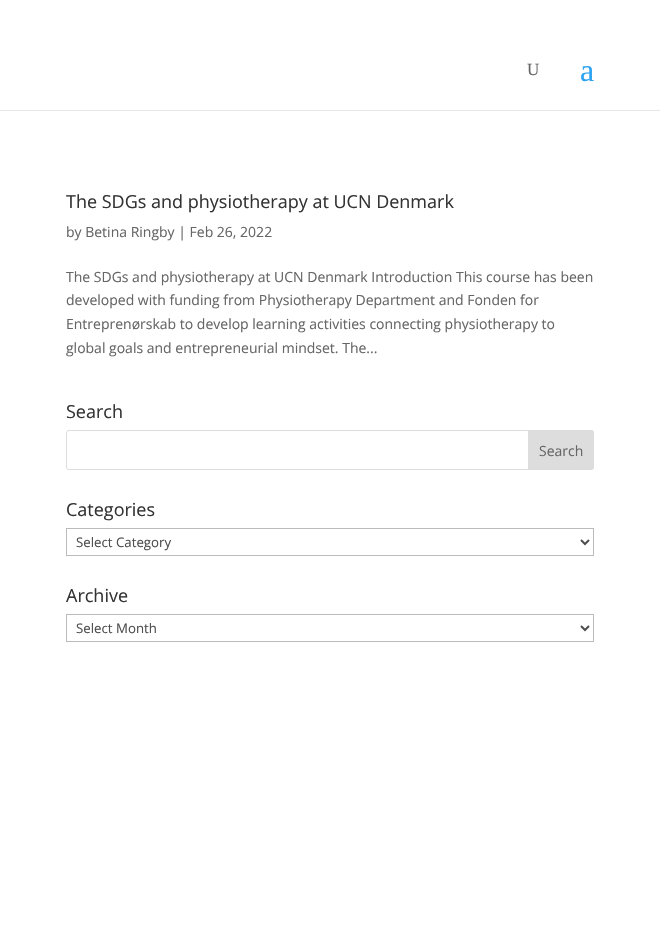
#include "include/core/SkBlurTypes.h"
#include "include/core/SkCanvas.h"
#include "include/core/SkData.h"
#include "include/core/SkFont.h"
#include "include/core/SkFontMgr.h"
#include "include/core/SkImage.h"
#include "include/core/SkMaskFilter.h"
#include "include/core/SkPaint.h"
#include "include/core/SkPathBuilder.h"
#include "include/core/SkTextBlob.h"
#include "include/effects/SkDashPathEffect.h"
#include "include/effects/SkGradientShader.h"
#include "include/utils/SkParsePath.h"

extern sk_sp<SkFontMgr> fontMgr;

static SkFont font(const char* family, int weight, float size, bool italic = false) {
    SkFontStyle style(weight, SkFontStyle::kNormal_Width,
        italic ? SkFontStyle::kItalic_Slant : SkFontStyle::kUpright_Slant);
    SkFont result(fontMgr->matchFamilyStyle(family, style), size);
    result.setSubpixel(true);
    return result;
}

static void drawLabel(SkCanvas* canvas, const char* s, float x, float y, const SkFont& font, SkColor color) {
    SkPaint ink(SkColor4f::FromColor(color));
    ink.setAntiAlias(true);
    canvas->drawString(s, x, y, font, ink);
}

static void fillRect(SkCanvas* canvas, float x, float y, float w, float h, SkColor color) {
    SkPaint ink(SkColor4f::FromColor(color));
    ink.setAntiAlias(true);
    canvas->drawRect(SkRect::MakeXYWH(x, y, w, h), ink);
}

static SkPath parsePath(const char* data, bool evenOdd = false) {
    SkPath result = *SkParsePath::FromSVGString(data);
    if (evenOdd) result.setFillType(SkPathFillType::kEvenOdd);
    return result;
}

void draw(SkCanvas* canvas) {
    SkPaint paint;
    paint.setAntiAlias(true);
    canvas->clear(0xFFFFFFFF);
    fillRect(canvas, 0, 110, 660, 1, 0xFFE6E6E6);
    SkFont font1 = font("Liberation Serif", 400, 17);
    drawLabel(canvas, "U", 527, 75, font1, 0xFF666666);
    SkFont font2 = font("Liberation Serif", 400, 32);
    drawLabel(canvas, "a", 580, 81, font2, 0xFF2EA3F2);
    SkFont font3 = font("Open Sans", 400, 18);
    drawLabel(canvas, "The SDGs and physiotherapy at UCN Denmark", 66, 208, font3, 0xFF333333);
    SkFont font4 = font("Open Sans", 400, 14);
    drawLabel(canvas, "by Betina Ringby | Feb 26, 2022", 66, 237, font4, 0xFF666666);
    drawLabel(canvas, "The SDGs and physiotherapy at UCN Denmark Introduction This course has been", 66, 282, font4, 0xFF666666);
    drawLabel(canvas, "developed with funding from Physiotherapy Department and Fonden for", 66, 305, font4, 0xFF666666);
    drawLabel(canvas, "Entreprenørskab to develop learning activities connecting physiotherapy to", 66, 329, font4, 0xFF666666);
    drawLabel(canvas, "global goals and entrepreneurial mindset. The...", 66, 353, font4, 0xFF666666);
    drawLabel(canvas, "Search", 66, 418, font3, 0xFF333333);
    paint.setStroke(true);
    paint.setStrokeWidth(1);
    paint.setColor(0xFFDDDDDD);
    canvas->drawRoundRect(SkRect::MakeXYWH(66.5f, 430.5f, 527, 39), 2.5f, 2.5f, paint);
    paint.setStroke(false);
    canvas->drawPath(parsePath("M528.5 430.5H591C592.5 430.5 593.5 431.5 593.5 433V467C593.5 468.5 592.5 469.5 591 469.5H528.5Z"), paint);
    paint.setStroke(true);
    canvas->drawPath(parsePath("M528.5 430.5H591C592.5 430.5 593.5 431.5 593.5 433V467C593.5 468.5 592.5 469.5 591 469.5H528.5Z"), paint);
    drawLabel(canvas, "Search", 539, 456, font4, 0xFF666666);
    drawLabel(canvas, "Categories", 66, 516, font3, 0xFF333333);
    paint.setColor(0xFFBBBBBB);
    canvas->drawRect(SkRect::MakeXYWH(66.5f, 528.5f, 527, 27), paint);
    paint.setStrokeWidth(2);
    paint.setColor(0xFF4E4E4E);
    canvas->drawPath(parsePath("M581 540L585 544L589 540"), paint);
    SkFont font5 = font("Open Sans", 400, 13.25f);
    drawLabel(canvas, "Select Category", 76, 547, font5, 0xFF4E4E4E);
    drawLabel(canvas, "Archive", 66, 602, font3, 0xFF333333);
    paint.setStrokeWidth(1);
    paint.setColor(0xFFBBBBBB);
    canvas->drawRect(SkRect::MakeXYWH(66.5f, 614.5f, 527, 27), paint);
    paint.setStrokeWidth(2);
    paint.setColor(0xFF4E4E4E);
    canvas->drawPath(parsePath("M581 626L585 630L589 626"), paint);
    drawLabel(canvas, "Select Month", 76, 633, font5, 0xFF4E4E4E);
}
